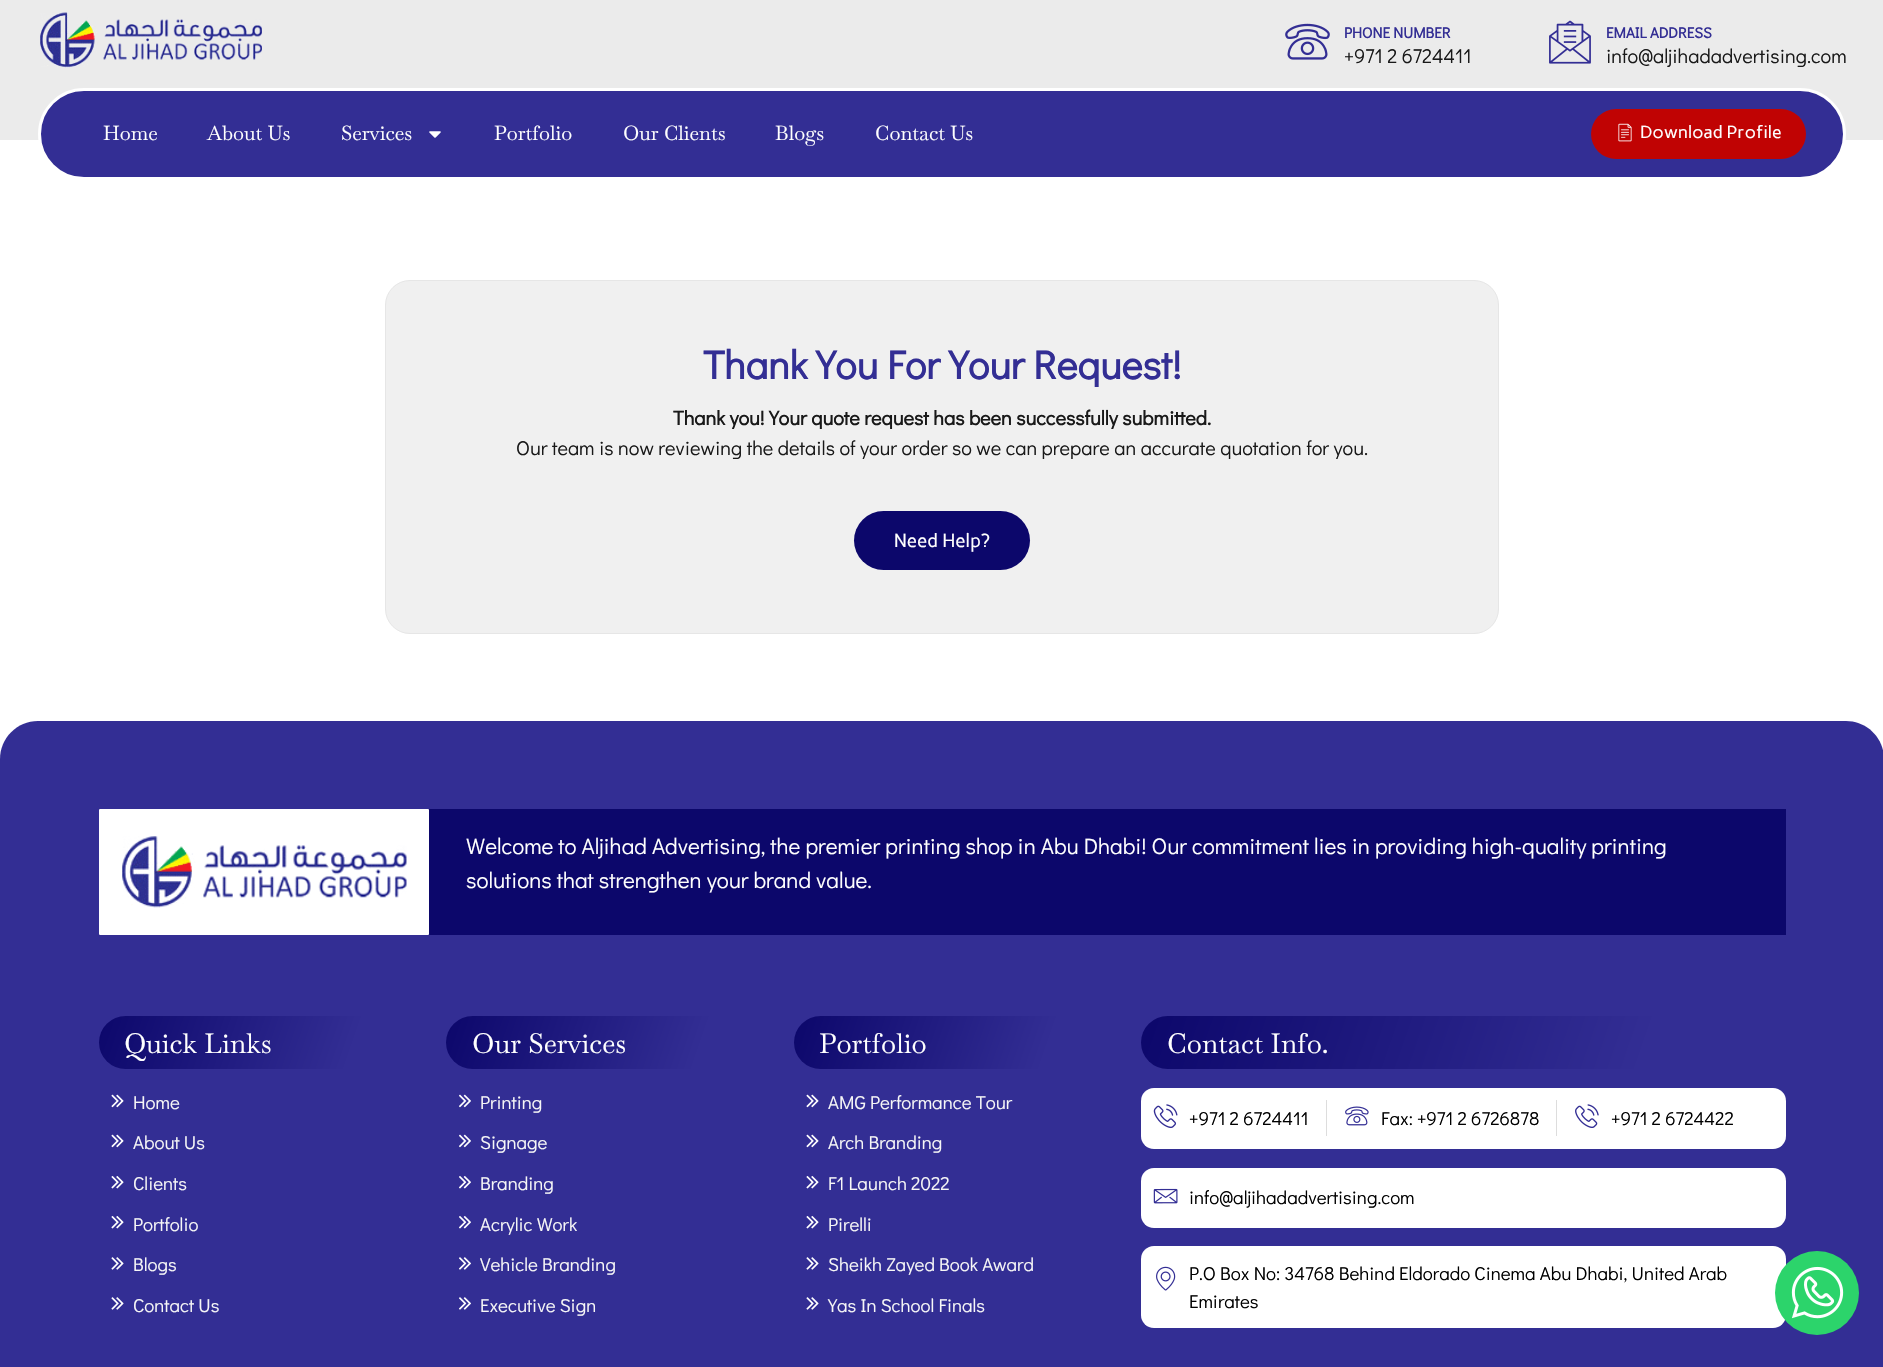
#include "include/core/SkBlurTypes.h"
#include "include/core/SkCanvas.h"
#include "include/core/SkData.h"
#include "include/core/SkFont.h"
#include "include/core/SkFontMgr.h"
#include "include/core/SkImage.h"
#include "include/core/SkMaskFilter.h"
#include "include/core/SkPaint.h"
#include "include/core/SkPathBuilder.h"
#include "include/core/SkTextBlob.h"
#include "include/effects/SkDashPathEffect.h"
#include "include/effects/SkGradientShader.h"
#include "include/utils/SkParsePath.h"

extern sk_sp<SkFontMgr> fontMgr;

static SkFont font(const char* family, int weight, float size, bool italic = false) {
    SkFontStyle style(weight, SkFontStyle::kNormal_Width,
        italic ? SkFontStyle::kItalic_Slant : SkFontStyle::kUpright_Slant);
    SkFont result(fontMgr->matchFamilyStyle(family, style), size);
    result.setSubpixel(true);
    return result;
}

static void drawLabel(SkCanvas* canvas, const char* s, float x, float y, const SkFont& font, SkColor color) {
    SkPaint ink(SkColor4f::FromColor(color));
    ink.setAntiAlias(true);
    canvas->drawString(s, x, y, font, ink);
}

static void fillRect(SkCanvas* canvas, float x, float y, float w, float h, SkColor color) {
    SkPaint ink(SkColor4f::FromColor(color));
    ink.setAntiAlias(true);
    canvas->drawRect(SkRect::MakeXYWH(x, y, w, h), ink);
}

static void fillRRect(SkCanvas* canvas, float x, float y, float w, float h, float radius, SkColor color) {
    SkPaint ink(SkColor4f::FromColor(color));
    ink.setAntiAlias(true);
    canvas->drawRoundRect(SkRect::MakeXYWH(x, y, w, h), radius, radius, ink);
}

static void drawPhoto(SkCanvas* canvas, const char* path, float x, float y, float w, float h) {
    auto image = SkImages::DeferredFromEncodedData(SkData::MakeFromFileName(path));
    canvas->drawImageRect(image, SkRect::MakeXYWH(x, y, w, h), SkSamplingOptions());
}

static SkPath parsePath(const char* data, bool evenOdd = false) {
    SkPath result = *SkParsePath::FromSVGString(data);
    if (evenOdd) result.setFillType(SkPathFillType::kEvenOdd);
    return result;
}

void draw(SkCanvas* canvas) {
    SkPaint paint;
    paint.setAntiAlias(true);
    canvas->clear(0xFFFFFFFF);
    fillRect(canvas, 0, 0, 1883, 140, 0xFFEBEBEB);
    drawPhoto(canvas, "assets/img1.png", 40, 12, 222, 56);
    drawPhoto(canvas, "assets/img2.png", 1285, 23, 45, 37);
    SkFont font1 = font("Didact Gothic", 700, 15);
    drawLabel(canvas, "PHONE NUMBER", 1344, 38, font1, 0xFF332E94);
    SkFont font2 = font("Didact Gothic", 400, 20);
    drawLabel(canvas, "+971 2 6724411", 1344, 63, font2, 0xFF191919);
    drawPhoto(canvas, "assets/img3.png", 1549, 20, 42, 44);
    drawLabel(canvas, "EMAIL ADDRESS", 1606, 38, font1, 0xFF332E94);
    drawLabel(canvas, "info@aljihadadvertising.com", 1606, 63, font2, 0xFF191919);
    paint.setColor(0xFF332E94);
    canvas->drawRoundRect(SkRect::MakeXYWH(39.5f, 89.5f, 1805, 89), 44.5f, 44.5f, paint);
    paint.setStroke(true);
    paint.setStrokeWidth(3);
    paint.setColor(0xFFFFFFFF);
    canvas->drawRoundRect(SkRect::MakeXYWH(39.5f, 89.5f, 1805, 89), 44.5f, 44.5f, paint);
    SkFont font3 = font("Baskervville", 400, 20);
    drawLabel(canvas, "Home", 103, 140, font3, 0xFFFFFFFF);
    drawLabel(canvas, "About Us", 207, 140, font3, 0xFFFFFFFF);
    drawLabel(canvas, "Services", 341, 140, font3, 0xFFFFFFFF);
    drawPhoto(canvas, "assets/img4.png", 429, 131, 12, 7);
    drawLabel(canvas, "Portfolio", 494, 140, font3, 0xFFFFFFFF);
    drawLabel(canvas, "Our Clients", 623, 140, font3, 0xFFFFFFFF);
    drawLabel(canvas, "Blogs", 775, 140, font3, 0xFFFFFFFF);
    drawLabel(canvas, "Contact Us", 875, 140, font3, 0xFFFFFFFF);
    fillRRect(canvas, 1591, 109, 215, 50, 25, 0xFFC00303);
    drawPhoto(canvas, "assets/img5.png", 1618, 123, 14, 19);
    SkFont font4 = font("Carme", 400, 17.5f);
    drawLabel(canvas, "Download Profile", 1640, 138, font4, 0xFFFFFFFF);
    paint.setStroke(false);
    paint.setColor(0xFFF0F0F0);
    canvas->drawRoundRect(SkRect::MakeXYWH(385.5f, 280.5f, 1113, 353), 24.5f, 24.5f, paint);
    paint.setStroke(true);
    paint.setStrokeWidth(1);
    paint.setColor(0xFFE6E6E6);
    canvas->drawRoundRect(SkRect::MakeXYWH(385.5f, 280.5f, 1113, 353), 24.5f, 24.5f, paint);
    SkFont font5 = font("Didact Gothic", 700, 40);
    drawLabel(canvas, "Thank You For Your Request!", 703, 379, font5, 0xFF332E94);
    SkFont font6 = font("Didact Gothic", 700, 20);
    drawLabel(canvas, "Thank you! Your quote request has been successfully submitted.", 673, 425, font6, 0xFF191919);
    drawLabel(canvas, "Our team is now reviewing the details of your order so we can prepare an accurate quotation for you.", 516, 455, font2, 0xFF191919);
    fillRRect(canvas, 854, 511, 176, 59, 29.5f, 0xFF0C076B);
    SkFont font7 = font("Carme", 400, 18.75f);
    drawLabel(canvas, "Need Help?", 894, 547, font7, 0xFFFFFFFF);
    paint.setStroke(false);
    paint.setColor(0xFF332E94);
    canvas->drawPath(parsePath("M38 721H1846C1867 721 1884 738 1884 759V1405H0V759C0 738 17 721 38 721Z"), paint);
    fillRect(canvas, 99, 809, 1687, 126, 0xFF0C076B);
    fillRRect(canvas, 99, 809, 330, 126, 1, 0xFFFFFFFF);
    drawPhoto(canvas, "assets/img6.png", 122, 836, 285, 72);
    SkFont font8 = font("Didact Gothic", 400, 22.5f);
    drawLabel(canvas, "Welcome to Aljihad Advertising, the premier printing shop in Abu Dhabi! Our commitment lies in providing high-quality printing", 466, 854, font8, 0xFFFFFFFF);
    drawLabel(canvas, "solutions that strengthen your brand value.", 466, 888, font8, 0xFFFFFFFF);
    {
        const SkColor colors[] = {0xFF0C076B, 0xFF332E94};
        const float stops[] = {0, 0.78f};
        const SkPoint ends[] = {{108, 990}, {412, 1095}};
        paint.setShader(SkGradientShader::MakeLinear(ends, colors, stops, 2, SkTileMode::kClamp));
        paint.setAlpha(255);
    }
    canvas->drawRoundRect(SkRect::MakeXYWH(99, 1016, 322, 53), 26.5f, 26.5f, paint);
    SkFont font9 = font("Baskervville", 400, 27.5f);
    drawLabel(canvas, "Quick Links", 124, 1053, font9, 0xFFFFFFFF);
    drawPhoto(canvas, "assets/img7.png", 111, 1094, 13, 14);
    SkFont font10 = font("Didact Gothic", 400, 18.75f);
    drawLabel(canvas, "Home", 133, 1109, font10, 0xFFF7F7F7);
    drawPhoto(canvas, "assets/img7.png", 111, 1134, 13, 14);
    drawLabel(canvas, "About Us", 133, 1149, font10, 0xFFF7F7F7);
    drawPhoto(canvas, "assets/img8.png", 111, 1176, 13, 13);
    drawLabel(canvas, "Clients", 133, 1190, font10, 0xFFF7F7F7);
    drawPhoto(canvas, "assets/img8.png", 111, 1216, 13, 13);
    drawLabel(canvas, "Portfolio", 133, 1231, font10, 0xFFF7F7F7);
    drawPhoto(canvas, "assets/img9.png", 111, 1257, 13, 13);
    drawLabel(canvas, "Blogs", 133, 1271, font10, 0xFFF7F7F7);
    drawPhoto(canvas, "assets/img9.png", 111, 1297, 13, 13);
    drawLabel(canvas, "Contact Us", 133, 1312, font10, 0xFFF7F7F7);
    {
        const SkColor colors[] = {0xFF0C076B, 0xFF332E94};
        const float stops[] = {0, 0.78f};
        const SkPoint ends[] = {{455, 990}, {760, 1095}};
        paint.setShader(SkGradientShader::MakeLinear(ends, colors, stops, 2, SkTileMode::kClamp));
        paint.setAlpha(255);
    }
    canvas->drawRoundRect(SkRect::MakeXYWH(446, 1016, 323, 53), 26.5f, 26.5f, paint);
    drawLabel(canvas, "Our Services", 472, 1053, font9, 0xFFFFFFFF);
    drawPhoto(canvas, "assets/img10.png", 459, 1094, 12, 14);
    drawLabel(canvas, "Printing", 480, 1109, font10, 0xFFF7F7F7);
    drawPhoto(canvas, "assets/img10.png", 459, 1134, 12, 14);
    drawLabel(canvas, "Signage", 480, 1149, font10, 0xFFF7F7F7);
    drawPhoto(canvas, "assets/img11.png", 459, 1176, 12, 13);
    drawLabel(canvas, "Branding", 480, 1190, font10, 0xFFF7F7F7);
    drawPhoto(canvas, "assets/img11.png", 459, 1216, 12, 13);
    drawLabel(canvas, "Acrylic Work", 480, 1231, font10, 0xFFF7F7F7);
    drawPhoto(canvas, "assets/img12.png", 459, 1257, 12, 13);
    drawLabel(canvas, "Vehicle Branding", 480, 1271, font10, 0xFFF7F7F7);
    drawPhoto(canvas, "assets/img12.png", 459, 1297, 12, 13);
    drawLabel(canvas, "Executive Sign", 480, 1312, font10, 0xFFF7F7F7);
    {
        const SkColor colors[] = {0xFF0C076B, 0xFF332E94};
        const float stops[] = {0, 0.78f};
        const SkPoint ends[] = {{803, 990}, {1107, 1095}};
        paint.setShader(SkGradientShader::MakeLinear(ends, colors, stops, 2, SkTileMode::kClamp));
        paint.setAlpha(255);
    }
    canvas->drawRoundRect(SkRect::MakeXYWH(794, 1016, 322, 53), 26.5f, 26.5f, paint);
    drawLabel(canvas, "Portfolio", 819, 1053, font9, 0xFFFFFFFF);
    drawPhoto(canvas, "assets/img7.png", 806, 1094, 13, 14);
    drawLabel(canvas, "AMG Performance Tour", 828, 1109, font10, 0xFFF7F7F7);
    drawPhoto(canvas, "assets/img7.png", 806, 1134, 13, 14);
    drawLabel(canvas, "Arch Branding", 828, 1149, font10, 0xFFF7F7F7);
    drawPhoto(canvas, "assets/img8.png", 806, 1176, 13, 13);
    drawLabel(canvas, "F1 Launch 2022", 828, 1190, font10, 0xFFF7F7F7);
    drawPhoto(canvas, "assets/img8.png", 806, 1216, 13, 13);
    drawLabel(canvas, "Pirelli", 828, 1231, font10, 0xFFF7F7F7);
    drawPhoto(canvas, "assets/img9.png", 806, 1257, 13, 13);
    drawLabel(canvas, "Sheikh Zayed Book Award", 828, 1271, font10, 0xFFF7F7F7);
    drawPhoto(canvas, "assets/img9.png", 806, 1297, 13, 13);
    drawLabel(canvas, "Yas In School Finals", 828, 1312, font10, 0xFFF7F7F7);
    {
        const SkColor colors[] = {0xFF0C076B, 0xFF332E94};
        const float stops[] = {0, 0.78f};
        const SkPoint ends[] = {{1167, 940}, {1760, 1145}};
        paint.setShader(SkGradientShader::MakeLinear(ends, colors, stops, 2, SkTileMode::kClamp));
        paint.setAlpha(255);
    }
    canvas->drawRoundRect(SkRect::MakeXYWH(1141, 1016, 645, 53), 26.5f, 26.5f, paint);
    drawLabel(canvas, "Contact Info.", 1167, 1053, font9, 0xFFFFFFFF);
    fillRRect(canvas, 1141, 1088, 645, 61, 13, 0xFFFFFFFF);
    drawPhoto(canvas, "assets/img13.png", 1153, 1104, 25, 25);
    drawLabel(canvas, "+971 2 6724411", 1189, 1125, font10, 0xFF000000);
    fillRect(canvas, 1326, 1100, 1, 36, 0xFFDDDDDD);
    drawPhoto(canvas, "assets/img14.png", 1345, 1106, 24, 20);
    drawLabel(canvas, "Fax: +971 2 6726878", 1381, 1125, font10, 0xFF000000);
    fillRect(canvas, 1556, 1100, 1, 36, 0xFFDDDDDD);
    drawPhoto(canvas, "assets/img15.png", 1575, 1104, 24, 24);
    drawLabel(canvas, "+971 2 6724422", 1611, 1125, font10, 0xFF000000);
    fillRRect(canvas, 1141, 1168, 645, 60, 13, 0xFFFFFFFF);
    drawPhoto(canvas, "assets/img16.png", 1153, 1188, 25, 16);
    drawLabel(canvas, "info@aljihadadvertising.com", 1189, 1204, font10, 0xFF000000);
    fillRRect(canvas, 1141, 1246, 645, 82, 13, 0xFFFFFFFF);
    drawPhoto(canvas, "assets/img17.png", 1156, 1266, 20, 25);
    drawLabel(canvas, "P.O Box No: 34768 Behind Eldorado Cinema Abu Dhabi, United Arab", 1189, 1280, font10, 0xFF000000);
    drawLabel(canvas, "Emirates", 1189, 1308, font10, 0xFF000000);
    paint.setShader(nullptr);
    paint.setColor(0xFF2CD46B);
    canvas->drawCircle(1817, 1293, 42, paint);
    drawPhoto(canvas, "assets/img18.png", 1791, 1266, 53, 53);
}
